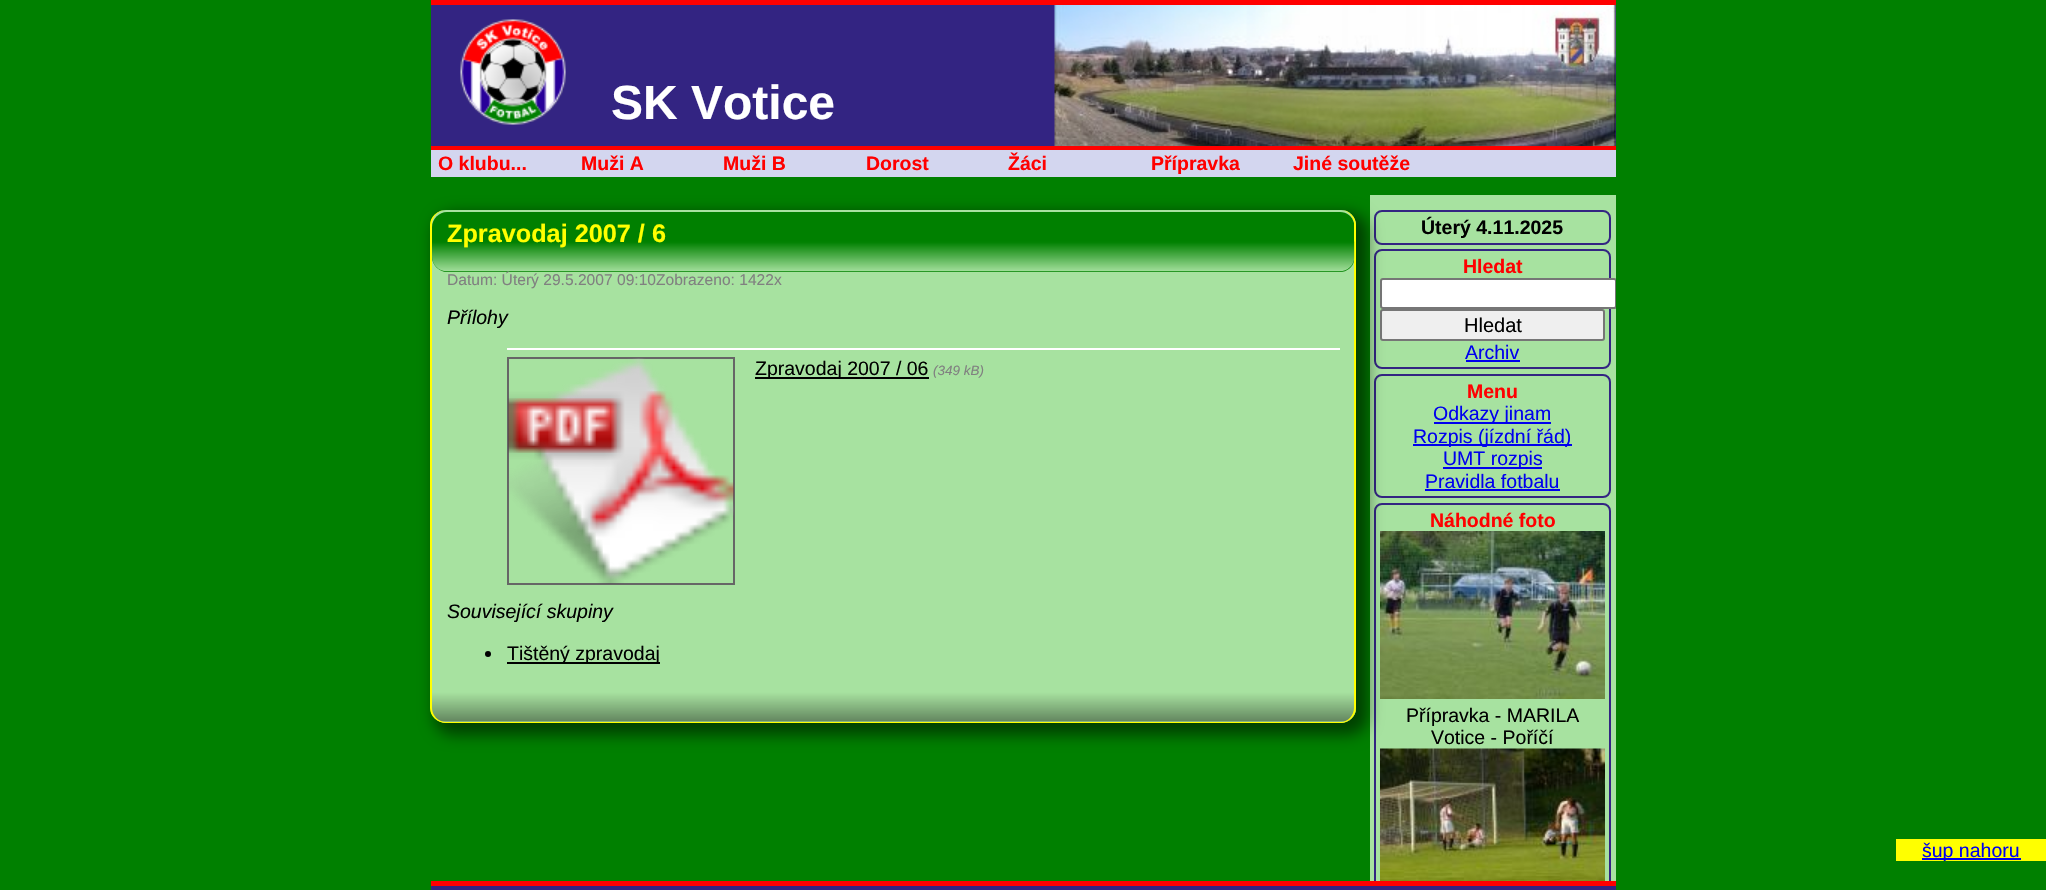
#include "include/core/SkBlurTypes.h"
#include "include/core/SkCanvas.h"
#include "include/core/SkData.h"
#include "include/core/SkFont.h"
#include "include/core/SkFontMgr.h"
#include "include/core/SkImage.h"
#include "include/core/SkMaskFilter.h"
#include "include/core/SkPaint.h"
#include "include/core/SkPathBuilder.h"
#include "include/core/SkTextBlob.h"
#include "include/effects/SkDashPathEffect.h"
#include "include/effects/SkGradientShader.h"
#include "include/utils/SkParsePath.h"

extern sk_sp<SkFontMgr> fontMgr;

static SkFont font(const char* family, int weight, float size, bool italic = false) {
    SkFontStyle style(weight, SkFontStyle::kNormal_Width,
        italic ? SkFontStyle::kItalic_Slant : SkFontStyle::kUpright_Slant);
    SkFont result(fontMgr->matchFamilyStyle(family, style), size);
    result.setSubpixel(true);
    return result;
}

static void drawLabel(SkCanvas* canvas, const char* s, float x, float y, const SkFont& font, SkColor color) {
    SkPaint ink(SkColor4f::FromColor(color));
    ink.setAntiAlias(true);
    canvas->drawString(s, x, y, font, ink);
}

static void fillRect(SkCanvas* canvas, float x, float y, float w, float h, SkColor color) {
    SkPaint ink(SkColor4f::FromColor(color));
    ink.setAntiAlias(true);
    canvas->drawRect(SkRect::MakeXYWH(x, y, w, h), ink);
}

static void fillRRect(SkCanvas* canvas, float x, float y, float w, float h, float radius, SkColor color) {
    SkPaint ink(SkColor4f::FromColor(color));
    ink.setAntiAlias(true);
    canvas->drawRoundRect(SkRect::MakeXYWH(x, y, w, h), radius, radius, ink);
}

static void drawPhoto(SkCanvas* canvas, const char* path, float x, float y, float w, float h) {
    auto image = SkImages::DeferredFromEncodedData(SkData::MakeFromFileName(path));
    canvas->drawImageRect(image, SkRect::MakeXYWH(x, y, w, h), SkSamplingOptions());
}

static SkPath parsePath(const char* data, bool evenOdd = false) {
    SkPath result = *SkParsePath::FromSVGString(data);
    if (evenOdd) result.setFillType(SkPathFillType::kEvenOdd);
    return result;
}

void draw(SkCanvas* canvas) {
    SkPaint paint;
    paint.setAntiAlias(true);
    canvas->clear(0xFF008000);
    fillRect(canvas, 431, 5, 1185, 141, 0xFF332482);
    drawPhoto(canvas, "assets/img1.png", 1054, 5, 562, 141);
    fillRect(canvas, 431, 0, 1185, 5, 0xFFFF0000);
    fillRect(canvas, 431, 146, 1185, 4, 0xFFFF0000);
    drawPhoto(canvas, "assets/img2.png", 460, 19, 106, 106);
    SkFont font1 = font("Liberation Sans", 700, 48);
    drawLabel(canvas, "SK Votice", 611, 119, font1, 0xFFFFFFFF);
    fillRect(canvas, 431, 150, 1185, 27, 0xFFD3D6EF);
    SkFont font2 = font("Liberation Sans", 700, 19.5f);
    drawLabel(canvas, "O klubu...", 438, 170, font2, 0xFFFF0000);
    drawLabel(canvas, "Muži A", 581, 170, font2, 0xFFFF0000);
    drawLabel(canvas, "Muži B", 723, 170, font2, 0xFFFF0000);
    drawLabel(canvas, "Dorost", 866, 170, font2, 0xFFFF0000);
    drawLabel(canvas, "Žáci", 1008, 170, font2, 0xFFFF0000);
    drawLabel(canvas, "Přípravka", 1151, 170, font2, 0xFFFF0000);
    drawLabel(canvas, "Jiné soutěže", 1293, 170, font2, 0xFFFF0000);
    fillRect(canvas, 1370, 195, 246, 686, 0xFFA7E2A0);
    paint.setStroke(true);
    paint.setStrokeWidth(2);
    paint.setColor(0xFF332482);
    canvas->drawRoundRect(SkRect::MakeXYWH(1375, 211, 235, 33), 7, 7, paint);
    canvas->drawRoundRect(SkRect::MakeXYWH(1375, 250, 235, 118), 7, 7, paint);
    canvas->save();
    canvas->clipRect(SkRect::MakeXYWH(1370, 195, 246, 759));
    paint.setStroke(false);
    paint.setColor(0xFFFFFFFF);
    canvas->drawRoundRect(SkRect::MakeXYWH(1381, 279, 235, 29), 2, 2, paint);
    paint.setStroke(true);
    paint.setColor(0xFF767676);
    canvas->drawRoundRect(SkRect::MakeXYWH(1381, 279, 235, 29), 2, 2, paint);
    canvas->restore();
    paint.setStroke(false);
    paint.setColor(0xFFEFEFEF);
    canvas->drawRoundRect(SkRect::MakeXYWH(1381, 310, 223, 30), 2, 2, paint);
    paint.setStroke(true);
    paint.setColor(0xFF767676);
    canvas->drawRoundRect(SkRect::MakeXYWH(1381, 310, 223, 30), 2, 2, paint);
    paint.setColor(0xFF332482);
    canvas->drawRoundRect(SkRect::MakeXYWH(1375, 375, 235, 122), 7, 7, paint);
    canvas->drawRoundRect(SkRect::MakeXYWH(1375, 504, 235, 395), 7, 7, paint);
    drawPhoto(canvas, "assets/img6.png", 1380, 531, 225, 168);
    drawPhoto(canvas, "assets/img7.png", 1380, 748, 225, 133);
    paint.setStroke(false);
    paint.setColor(0x80000000);
    paint.setMaskFilter(SkMaskFilter::MakeBlur(kNormal_SkBlurStyle, 7.5f));
    canvas->drawRoundRect(SkRect::MakeXYWH(434, 213, 934, 522), 20, 20, paint);
    paint.setMaskFilter(nullptr);
    fillRRect(canvas, 431, 210, 925, 513, 15, 0xFFA7E2A0);
    drawPhoto(canvas, "assets/img3.png", 430, 691, 926, 31);
    paint.setColor(0xFFFFFF00);
    canvas->drawPath(parsePath("M446 210H1341C1349 210 1356 217 1356 225V708C1356 716 1349 723 1341 723H446C437 723 430 716 430 708V225C430 217 437 210 446 210ZM446 210H1341C1348 210 1354 217 1354 225V708C1354 715 1348 722 1341 722H446C438 722 432 715 432 708V225C432 217 438 210 446 210Z", true), paint);
    paint.setColor(0xFF008000);
    canvas->drawPath(parsePath("M447 212C439 212 432 219 432 227V257C432 265 439 272 447 272H1340C1347 272 1353 267 1354 261V223C1352 216 1347 212 1340 212Z"), paint);
    drawPhoto(canvas, "assets/img4.png", 432, 241, 923, 31);
    SkFont font3 = font("Liberation Sans", 700, 25.25f);
    drawLabel(canvas, "Zpravodaj 2007 / 6", 447, 242, font3, 0xFFFFFF00);
    SkFont font4 = font("Liberation Sans", 400, 15.6f);
    drawLabel(canvas, "Datum: Úterý 29.5.2007 09:10Zobrazeno: 1422x", 447, 285, font4, 0xFF808080);
    SkFont font5 = font("Liberation Sans", 400, 19.5f, true);
    drawLabel(canvas, "Přílohy", 447, 324, font5, 0xFF000000);
    fillRect(canvas, 507, 348, 833, 2, 0xFFFFFFFF);
    paint.setStroke(true);
    paint.setColor(0xFF666666);
    canvas->drawRect(SkRect::MakeXYWH(508, 358, 226, 226), paint);
    drawPhoto(canvas, "assets/img5.png", 508, 358, 226, 226);
    fillRect(canvas, 755, 377, 174, 2, 0xFF000000);
    SkFont font6 = font("Liberation Sans", 400, 19.5f);
    drawLabel(canvas, "Zpravodaj 2007 / 06", 755, 375, font6, 0xFF000000);
    SkFont font7 = font("Liberation Sans", 400, 13.5f, true);
    drawLabel(canvas, "(349 kB)", 933, 375, font7, 0xFF808080);
    drawLabel(canvas, "Související skupiny", 447, 618, font5, 0xFF000000);
    paint.setStroke(false);
    paint.setColor(0xFF000000);
    canvas->drawCircle(488, 654, 3, paint);
    fillRect(canvas, 507, 662, 153, 2, 0xFF000000);
    drawLabel(canvas, "Tištěný zpravodaj", 507, 660, font6, 0xFF000000);
    drawLabel(canvas, "Úterý 4.11.2025", 1421, 234, font2, 0xFF000000);
    drawLabel(canvas, "Hledat", 1463, 273, font2, 0xFFFF0000);
    SkFont font8 = font("Liberation Sans", 400, 20);
    drawLabel(canvas, "Hledat", 1464, 332, font8, 0xFF000000);
    drawLabel(canvas, "Archiv", 1465, 359, font6, 0xFF0000EE);
    fillRect(canvas, 1466, 360, 54, 2, 0xFF0000EE);
    drawLabel(canvas, "Menu", 1467, 398, font2, 0xFFFF0000);
    fillRect(canvas, 1434, 422, 117, 2, 0xFF0000EE);
    drawLabel(canvas, "Odkazy jinam", 1433, 420, font6, 0xFF0000EE);
    fillRect(canvas, 1413, 444, 159, 2, 0xFF0000EE);
    drawLabel(canvas, "Rozpis (jízdní řád)", 1413, 443, font6, 0xFF0000EE);
    fillRect(canvas, 1443, 467, 99, 2, 0xFF0000EE);
    drawLabel(canvas, "UMT rozpis", 1443, 465, font6, 0xFF0000EE);
    drawLabel(canvas, "Pravidla fotbalu", 1425, 488, font6, 0xFF0000EE);
    fillRect(canvas, 1425, 489, 135, 2, 0xFF0000EE);
    drawLabel(canvas, "Náhodné foto", 1430, 527, font2, 0xFFFF0000);
    drawLabel(canvas, "Přípravka - MARILA", 1406, 722, font6, 0xFF000000);
    drawLabel(canvas, "Votice - Poříčí", 1431, 744, font6, 0xFF000000);
    fillRect(canvas, 431, 886, 1185, 4, 0xFF332482);
    fillRect(canvas, 431, 881, 1185, 5, 0xFFFF0000);
    fillRect(canvas, 1896, 839, 150, 22, 0xFFFFFF00);
    fillRect(canvas, 1922, 858, 99, 2, 0xFF0000EE);
    drawLabel(canvas, "šup nahoru", 1922, 857, font6, 0xFF0000EE);
}
